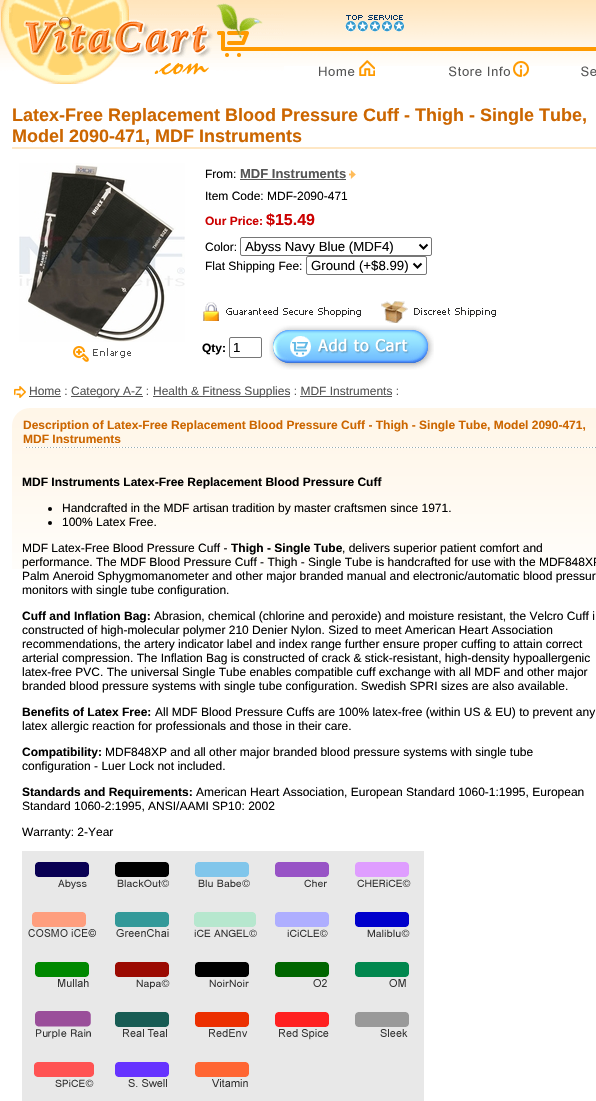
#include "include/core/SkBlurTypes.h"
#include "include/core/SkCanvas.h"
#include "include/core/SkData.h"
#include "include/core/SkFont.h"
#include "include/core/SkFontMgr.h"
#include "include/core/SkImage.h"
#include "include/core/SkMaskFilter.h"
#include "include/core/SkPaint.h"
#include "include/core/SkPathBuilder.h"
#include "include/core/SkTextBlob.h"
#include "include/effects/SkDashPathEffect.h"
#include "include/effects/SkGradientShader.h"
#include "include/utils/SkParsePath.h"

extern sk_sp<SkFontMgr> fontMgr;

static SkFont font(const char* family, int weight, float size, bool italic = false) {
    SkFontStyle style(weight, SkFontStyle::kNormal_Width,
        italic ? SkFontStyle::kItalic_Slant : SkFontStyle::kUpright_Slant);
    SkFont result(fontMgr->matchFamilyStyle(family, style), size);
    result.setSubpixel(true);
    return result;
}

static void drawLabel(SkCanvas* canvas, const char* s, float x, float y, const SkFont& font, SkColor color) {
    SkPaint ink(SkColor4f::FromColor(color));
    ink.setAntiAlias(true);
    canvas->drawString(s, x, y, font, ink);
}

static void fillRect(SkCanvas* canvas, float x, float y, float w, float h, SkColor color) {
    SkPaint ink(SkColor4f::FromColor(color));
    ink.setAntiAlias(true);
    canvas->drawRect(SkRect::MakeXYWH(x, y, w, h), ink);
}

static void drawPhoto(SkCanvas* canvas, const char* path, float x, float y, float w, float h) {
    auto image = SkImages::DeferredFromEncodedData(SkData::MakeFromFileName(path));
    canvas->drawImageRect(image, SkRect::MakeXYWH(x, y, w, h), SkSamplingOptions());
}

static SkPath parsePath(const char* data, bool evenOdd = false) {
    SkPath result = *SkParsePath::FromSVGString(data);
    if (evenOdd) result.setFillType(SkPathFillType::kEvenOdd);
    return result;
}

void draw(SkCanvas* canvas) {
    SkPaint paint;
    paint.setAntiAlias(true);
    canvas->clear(0xFFFFFFFF);
    drawPhoto(canvas, "assets/img1.png", 284, 0, 312, 66);
    drawPhoto(canvas, "assets/img2.png", 0, 0, 284, 84);
    drawPhoto(canvas, "assets/img3.png", 345, 15, 59, 17);
    drawPhoto(canvas, "assets/img4.png", 319, 60, 56, 16);
    drawPhoto(canvas, "assets/img5.png", 449, 61, 80, 16);
    drawPhoto(canvas, "assets/img6.png", 581, 66, 15, 11);
    SkFont font1 = font("Liberation Sans", 700, 18);
    drawLabel(canvas, "Latex-Free Replacement Blood Pressure Cuff - Thigh - Single Tube,", 12, 121, font1, 0xFFCC6600);
    drawLabel(canvas, "Model 2090-471, MDF Instruments", 12, 142, font1, 0xFFCC6600);
    fillRect(canvas, 12, 147, 584, 2, 0xFFFEE7C5);
    drawPhoto(canvas, "assets/img7.png", 19, 163, 166, 179);
    drawPhoto(canvas, "assets/img8.png", 73, 346, 58, 16);
    SkFont font2 = font("Liberation Sans", 400, 12);
    drawLabel(canvas, "From:", 205, 178, font2, 0xFF000000);
    SkFont font3 = font("Liberation Sans", 700, 13);
    drawLabel(canvas, "MDF Instruments", 240, 178, font3, 0xFF555555);
    fillRect(canvas, 240, 179, 106, 1, 0xFF555555);
    drawPhoto(canvas, "assets/img9.png", 349, 170, 7, 9);
    drawLabel(canvas, "Item Code: MDF-2090-471", 205, 200, font2, 0xFF000000);
    SkFont font4 = font("Liberation Sans", 700, 12);
    drawLabel(canvas, "Our Price:", 205, 225, font4, 0xFFCC0000);
    SkFont font5 = font("Liberation Sans", 700, 16);
    drawLabel(canvas, "$15.49", 266, 225, font5, 0xFFCC0000);
    drawLabel(canvas, "Color:", 205, 251, font2, 0xFF000000);
    paint.setStroke(true);
    paint.setStrokeWidth(1);
    paint.setColor(0xFF767676);
    canvas->drawRoundRect(SkRect::MakeXYWH(240.5f, 237.5f, 191, 18), 1.5f, 1.5f, paint);
    paint.setStrokeWidth(2);
    paint.setColor(0xFF000000);
    canvas->drawPath(parsePath("M419.5 244.5L423.5 248.5L427.5 244.5"), paint);
    SkFont font6 = font("Liberation Sans", 400, 13.25f);
    drawLabel(canvas, "Abyss Navy Blue (MDF4)", 245, 251, font6, 0xFF000000);
    drawLabel(canvas, "Flat Shipping Fee:", 205, 270, font2, 0xFF000000);
    paint.setStrokeWidth(1);
    paint.setColor(0xFF767676);
    canvas->drawRoundRect(SkRect::MakeXYWH(306.5f, 256.5f, 120, 18), 1.5f, 1.5f, paint);
    paint.setStrokeWidth(2);
    paint.setColor(0xFF000000);
    canvas->drawPath(parsePath("M413.5 263.5L417.5 267.5L421.5 263.5"), paint);
    drawLabel(canvas, "Ground (+$8.99)", 311, 270, font6, 0xFF000000);
    drawPhoto(canvas, "assets/img10.png", 203, 302, 158, 19);
    drawPhoto(canvas, "assets/img11.png", 381, 301, 115, 22);
    drawLabel(canvas, "Qty:", 202, 352, font4, 0xFF000000);
    paint.setStrokeWidth(1);
    paint.setColor(0xFF767676);
    canvas->drawRoundRect(SkRect::MakeXYWH(229.5f, 337.5f, 32, 20), 1.5f, 1.5f, paint);
    drawLabel(canvas, "1", 233, 352, font6, 0xFF000000);
    drawPhoto(canvas, "assets/img12.png", 269, 325, 165, 45);
    drawPhoto(canvas, "assets/img13.png", 14, 386, 12, 12);
    drawLabel(canvas, "Home :", 29, 395, font2, 0xFF555555);
    fillRect(canvas, 29, 396, 32, 1, 0xFF555555);
    fillRect(canvas, 71, 396, 72, 1, 0xFF555555);
    drawLabel(canvas, "Category A-Z :", 71, 395, font2, 0xFF555555);
    fillRect(canvas, 153, 396, 137, 1, 0xFF555555);
    drawLabel(canvas, "Health & Fitness Supplies : MDF Instruments :", 153, 395, font2, 0xFF555555);
    fillRect(canvas, 300, 396, 92, 1, 0xFF555555);
    drawPhoto(canvas, "assets/img14.png", 12, 408, 584, 161);
    drawLabel(canvas, "Description of Latex-Free Replacement Blood Pressure Cuff - Thigh - Single Tube, Model 2090-471,", 23, 429, font4, 0xFFCC6600);
    drawLabel(canvas, "MDF Instruments", 23, 443, font4, 0xFFCC6600);
    drawPhoto(canvas, "assets/img15.png", 23, 447, 573, 1);
    drawLabel(canvas, "MDF Instruments Latex-Free Replacement Blood Pressure Cuff", 22, 486, font4, 0xFF000000);
    paint.setStroke(false);
    paint.setColor(0xFF000000);
    canvas->drawCircle(50, 509, 2, paint);
    drawLabel(canvas, "Handcrafted in the MDF artisan tradition by master craftsmen since 1971.", 62, 512, font2, 0xFF000000);
    canvas->drawCircle(50, 523, 2, paint);
    drawLabel(canvas, "100% Latex Free.", 62, 526, font2, 0xFF000000);
    drawLabel(canvas, "MDF Latex-Free Blood Pressure Cuff -", 22, 552, font2, 0xFF000000);
    drawLabel(canvas, "Thigh - Single Tube", 231, 552, font4, 0xFF000000);
    drawLabel(canvas, ", delivers superior patient comfort and", 342, 552, font2, 0xFF000000);
    drawLabel(canvas, "performance. The MDF Blood Pressure Cuff - Thigh - Single Tube is handcrafted for use with the MDF848XP", 22, 566, font2, 0xFF000000);
    drawLabel(canvas, "Palm Aneroid Sphygmomanometer and other major branded manual and electronic/automatic blood pressur", 22, 580, font2, 0xFF000000);
    drawLabel(canvas, "monitors with single tube configuration.", 22, 594, font2, 0xFF000000);
    drawLabel(canvas, "Cuff and Inflation Bag:", 22, 620, font4, 0xFF000000);
    drawLabel(canvas, "Abrasion, chemical (chlorine and peroxide) and moisture resistant, the Velcro Cuff i", 154, 620, font2, 0xFF000000);
    drawLabel(canvas, "constructed of high-molecular polymer 210 Denier Nylon. Sized to meet American Heart Association", 22, 634, font2, 0xFF000000);
    drawLabel(canvas, "recommendations, the artery indicator label and index range further ensure proper cuffing to attain correct", 22, 648, font2, 0xFF000000);
    drawLabel(canvas, "arterial compression. The Inflation Bag is constructed of crack & stick-resistant, high-density hypoallergenic", 22, 662, font2, 0xFF000000);
    drawLabel(canvas, "latex-free PVC. The universal Single Tube enables compatible cuff exchange with all MDF and other major", 22, 676, font2, 0xFF000000);
    drawLabel(canvas, "branded blood pressure systems with single tube configuration. Swedish SPRI sizes are also available.", 22, 690, font2, 0xFF000000);
    drawLabel(canvas, "Benefits of Latex Free:", 22, 716, font4, 0xFF000000);
    drawLabel(canvas, "All MDF Blood Pressure Cuffs are 100% latex-free (within US & EU) to prevent any", 155, 716, font2, 0xFF000000);
    drawLabel(canvas, "latex allergic reaction for professionals and those in their care.", 22, 730, font2, 0xFF000000);
    drawLabel(canvas, "Compatibility:", 22, 756, font4, 0xFF000000);
    drawLabel(canvas, "MDF848XP and all other major branded blood pressure systems with single tube", 105, 756, font2, 0xFF000000);
    drawLabel(canvas, "configuration - Luer Lock not included.", 22, 770, font2, 0xFF000000);
    drawLabel(canvas, "Standards and Requirements:", 22, 796, font4, 0xFF000000);
    drawLabel(canvas, "American Heart Association, European Standard 1060-1:1995, European", 196, 796, font2, 0xFF000000);
    drawLabel(canvas, "Standard 1060-2:1995, ANSI/AAMI SP10: 2002", 22, 810, font2, 0xFF000000);
    drawLabel(canvas, "Warranty: 2-Year", 22, 836, font2, 0xFF000000);
    drawPhoto(canvas, "assets/img16.png", 22, 851, 402, 250);
}
